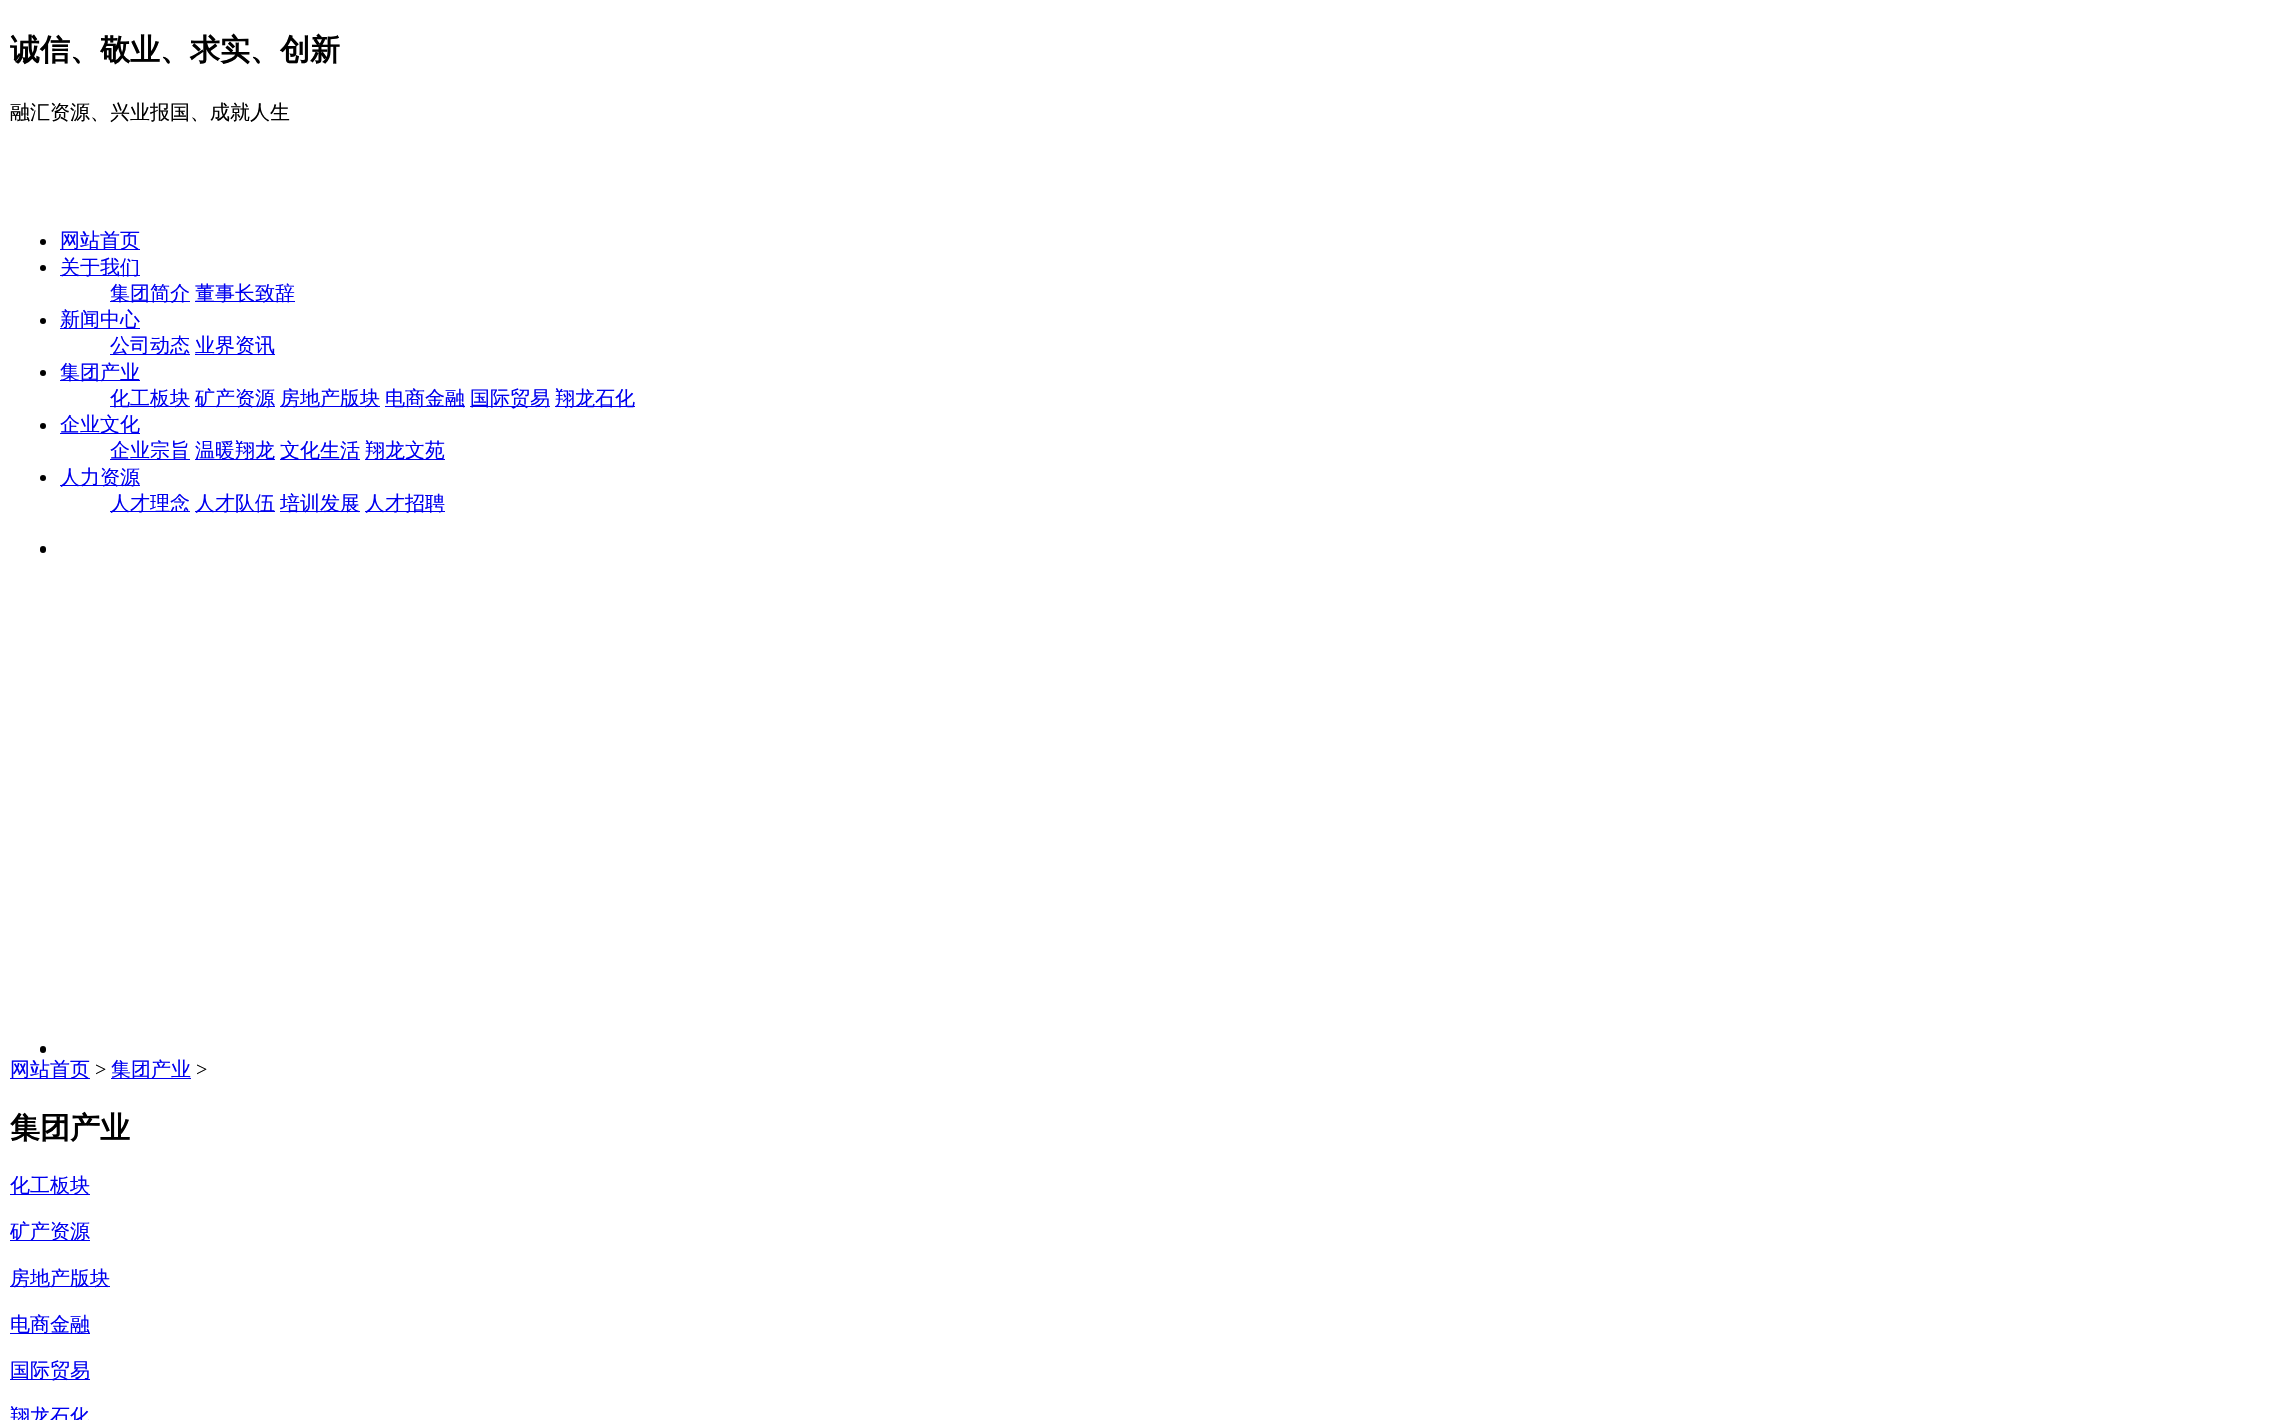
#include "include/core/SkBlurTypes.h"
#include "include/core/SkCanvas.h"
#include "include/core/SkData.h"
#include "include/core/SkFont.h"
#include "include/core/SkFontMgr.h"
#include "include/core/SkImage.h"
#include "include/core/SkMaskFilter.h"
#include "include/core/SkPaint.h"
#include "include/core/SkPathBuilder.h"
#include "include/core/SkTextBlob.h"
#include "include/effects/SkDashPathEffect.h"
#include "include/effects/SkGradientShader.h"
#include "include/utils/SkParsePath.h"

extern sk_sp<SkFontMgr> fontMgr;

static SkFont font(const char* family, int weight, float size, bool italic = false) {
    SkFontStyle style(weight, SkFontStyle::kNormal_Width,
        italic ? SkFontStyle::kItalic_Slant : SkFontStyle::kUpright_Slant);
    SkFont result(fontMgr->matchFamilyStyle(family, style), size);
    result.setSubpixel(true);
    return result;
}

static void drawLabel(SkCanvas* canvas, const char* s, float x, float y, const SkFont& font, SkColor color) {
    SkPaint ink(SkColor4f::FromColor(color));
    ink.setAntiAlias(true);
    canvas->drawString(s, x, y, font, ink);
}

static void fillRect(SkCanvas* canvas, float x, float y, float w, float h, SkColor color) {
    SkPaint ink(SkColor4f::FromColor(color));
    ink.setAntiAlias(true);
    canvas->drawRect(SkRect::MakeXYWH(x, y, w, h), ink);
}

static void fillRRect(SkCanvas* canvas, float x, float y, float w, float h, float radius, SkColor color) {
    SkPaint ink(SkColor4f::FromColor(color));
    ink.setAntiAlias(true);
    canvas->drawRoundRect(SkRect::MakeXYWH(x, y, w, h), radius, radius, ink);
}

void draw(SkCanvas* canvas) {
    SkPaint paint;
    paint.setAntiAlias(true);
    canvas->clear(0xFFFFFFFF);
    SkFont font1 = font("WenQuanYi Zen Hei", 700, 30);
    drawLabel(canvas, "诚信、敬业、求实、创新", 10, 60, font1, 0xFF000000);
    SkFont font2 = font("WenQuanYi Zen Hei", 500, 20);
    drawLabel(canvas, "融汇资源、兴业报国、成就人生", 10, 119, font2, 0xFF000000);
    paint.setColor(0xFF000000);
    canvas->drawCircle(43, 242, 3, paint);
    fillRect(canvas, 60, 249, 80, 1, 0xFF0000EE);
    drawLabel(canvas, "网站首页", 60, 247, font2, 0xFF0000EE);
    canvas->drawCircle(43, 268, 3, paint);
    fillRect(canvas, 60, 275, 80, 1, 0xFF0000EE);
    drawLabel(canvas, "关于我们", 60, 274, font2, 0xFF0000EE);
    fillRect(canvas, 110, 301, 80, 1, 0xFF0000EE);
    drawLabel(canvas, "集团简介", 110, 300, font2, 0xFF0000EE);
    fillRect(canvas, 195, 301, 100, 1, 0xFF0000EE);
    drawLabel(canvas, "董事长致辞", 195, 300, font2, 0xFF0000EE);
    canvas->drawCircle(43, 321, 3, paint);
    fillRect(canvas, 60, 328, 80, 1, 0xFF0000EE);
    drawLabel(canvas, "新闻中心", 60, 326, font2, 0xFF0000EE);
    fillRect(canvas, 110, 354, 80, 1, 0xFF0000EE);
    drawLabel(canvas, "公司动态", 110, 352, font2, 0xFF0000EE);
    fillRect(canvas, 195, 354, 80, 1, 0xFF0000EE);
    drawLabel(canvas, "业界资讯", 195, 352, font2, 0xFF0000EE);
    canvas->drawCircle(43, 373, 3, paint);
    fillRect(canvas, 60, 380, 80, 1, 0xFF0000EE);
    drawLabel(canvas, "集团产业", 60, 379, font2, 0xFF0000EE);
    fillRect(canvas, 110, 406, 80, 1, 0xFF0000EE);
    drawLabel(canvas, "化工板块", 110, 405, font2, 0xFF0000EE);
    fillRect(canvas, 195, 406, 80, 1, 0xFF0000EE);
    drawLabel(canvas, "矿产资源", 195, 405, font2, 0xFF0000EE);
    fillRect(canvas, 280, 406, 100, 1, 0xFF0000EE);
    drawLabel(canvas, "房地产版块", 280, 405, font2, 0xFF0000EE);
    fillRect(canvas, 385, 406, 80, 1, 0xFF0000EE);
    drawLabel(canvas, "电商金融", 385, 405, font2, 0xFF0000EE);
    fillRect(canvas, 470, 406, 80, 1, 0xFF0000EE);
    drawLabel(canvas, "国际贸易", 470, 405, font2, 0xFF0000EE);
    fillRect(canvas, 555, 406, 80, 1, 0xFF0000EE);
    drawLabel(canvas, "翔龙石化", 555, 405, font2, 0xFF0000EE);
    canvas->drawCircle(43, 426, 3, paint);
    fillRect(canvas, 60, 433, 80, 1, 0xFF0000EE);
    drawLabel(canvas, "企业文化", 60, 431, font2, 0xFF0000EE);
    fillRect(canvas, 110, 459, 80, 1, 0xFF0000EE);
    drawLabel(canvas, "企业宗旨", 110, 457, font2, 0xFF0000EE);
    fillRect(canvas, 195, 459, 80, 1, 0xFF0000EE);
    drawLabel(canvas, "温暖翔龙", 195, 457, font2, 0xFF0000EE);
    fillRect(canvas, 280, 459, 80, 1, 0xFF0000EE);
    drawLabel(canvas, "文化生活", 280, 457, font2, 0xFF0000EE);
    fillRect(canvas, 365, 459, 80, 1, 0xFF0000EE);
    drawLabel(canvas, "翔龙文苑", 365, 457, font2, 0xFF0000EE);
    canvas->drawCircle(43, 478, 3, paint);
    fillRect(canvas, 60, 485, 80, 1, 0xFF0000EE);
    drawLabel(canvas, "人力资源", 60, 484, font2, 0xFF0000EE);
    fillRect(canvas, 110, 511, 80, 1, 0xFF0000EE);
    drawLabel(canvas, "人才理念", 110, 510, font2, 0xFF0000EE);
    fillRect(canvas, 195, 511, 80, 1, 0xFF0000EE);
    drawLabel(canvas, "人才队伍", 195, 510, font2, 0xFF0000EE);
    fillRect(canvas, 280, 511, 80, 1, 0xFF0000EE);
    drawLabel(canvas, "培训发展", 280, 510, font2, 0xFF0000EE);
    fillRect(canvas, 365, 511, 80, 1, 0xFF0000EE);
    drawLabel(canvas, "人才招聘", 365, 510, font2, 0xFF0000EE);
    fillRRect(canvas, 40, 546, 6, 7, 3, 0xFF000000);
    fillRRect(canvas, 40, 1046, 6, 7, 3, 0xFF000000);
    fillRect(canvas, 10, 1078, 80, 1, 0xFF0000EE);
    drawLabel(canvas, "网站首页", 10, 1076, font2, 0xFF0000EE);
    SkFont font3 = font("Liberation Serif", 400, 20);
    drawLabel(canvas, ">", 95, 1076, font3, 0xFF000000);
    fillRect(canvas, 111, 1078, 80, 1, 0xFF0000EE);
    drawLabel(canvas, "集团产业", 111, 1076, font2, 0xFF0000EE);
    drawLabel(canvas, ">", 196, 1076, font3, 0xFF000000);
    drawLabel(canvas, "集团产业", 10, 1138, font1, 0xFF000000);
    fillRect(canvas, 10, 1194, 80, 1, 0xFF0000EE);
    drawLabel(canvas, "化工板块", 10, 1192, font2, 0xFF0000EE);
    fillRect(canvas, 10, 1240, 80, 1, 0xFF0000EE);
    drawLabel(canvas, "矿产资源", 10, 1238, font2, 0xFF0000EE);
    fillRect(canvas, 10, 1286, 100, 1, 0xFF0000EE);
    drawLabel(canvas, "房地产版块", 10, 1285, font2, 0xFF0000EE);
    fillRect(canvas, 10, 1333, 80, 1, 0xFF0000EE);
    drawLabel(canvas, "电商金融", 10, 1331, font2, 0xFF0000EE);
    fillRect(canvas, 10, 1379, 80, 1, 0xFF0000EE);
    drawLabel(canvas, "国际贸易", 10, 1377, font2, 0xFF0000EE);
    drawLabel(canvas, "翔龙石化", 10, 1423, font2, 0xFF0000EE);
}
